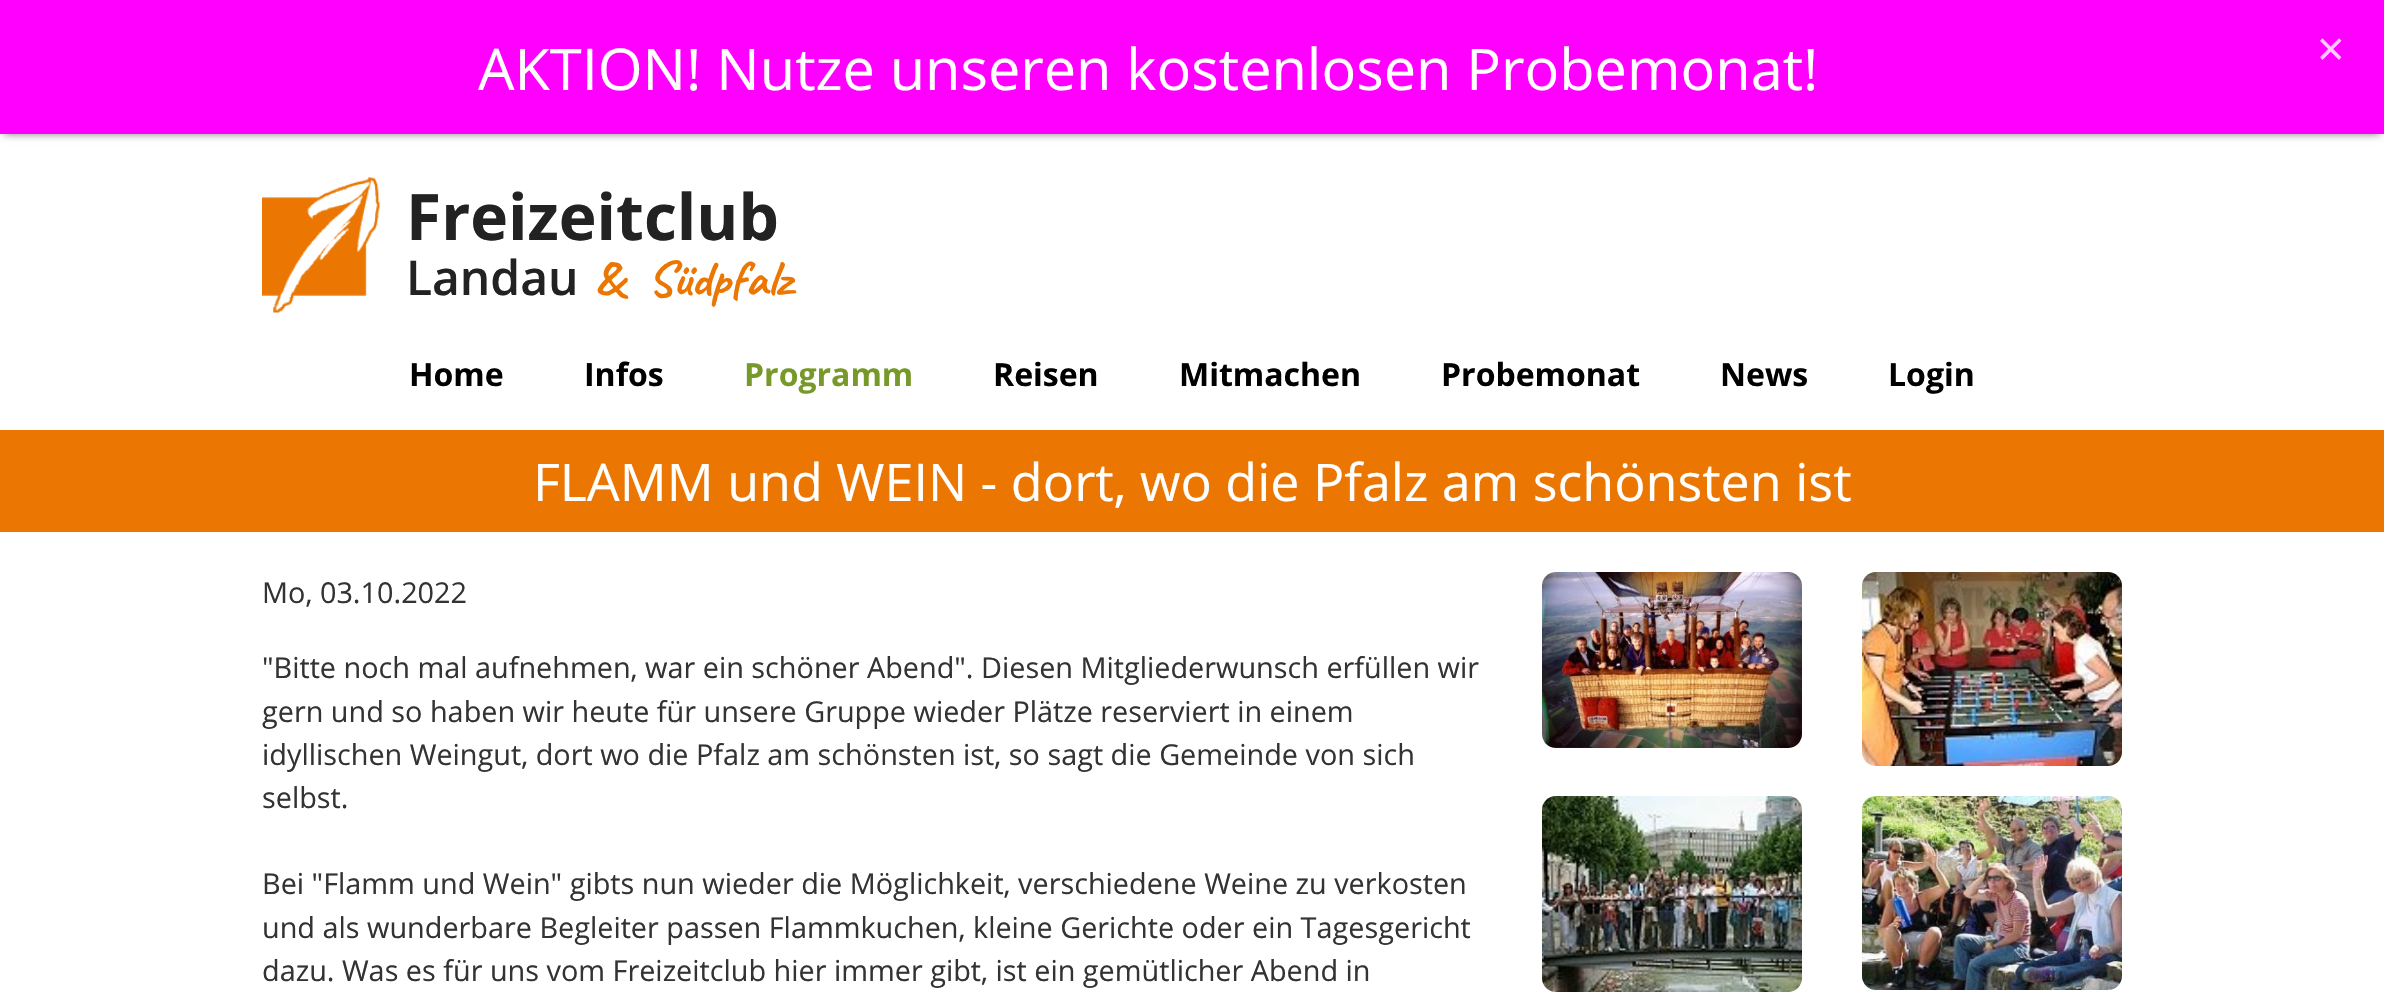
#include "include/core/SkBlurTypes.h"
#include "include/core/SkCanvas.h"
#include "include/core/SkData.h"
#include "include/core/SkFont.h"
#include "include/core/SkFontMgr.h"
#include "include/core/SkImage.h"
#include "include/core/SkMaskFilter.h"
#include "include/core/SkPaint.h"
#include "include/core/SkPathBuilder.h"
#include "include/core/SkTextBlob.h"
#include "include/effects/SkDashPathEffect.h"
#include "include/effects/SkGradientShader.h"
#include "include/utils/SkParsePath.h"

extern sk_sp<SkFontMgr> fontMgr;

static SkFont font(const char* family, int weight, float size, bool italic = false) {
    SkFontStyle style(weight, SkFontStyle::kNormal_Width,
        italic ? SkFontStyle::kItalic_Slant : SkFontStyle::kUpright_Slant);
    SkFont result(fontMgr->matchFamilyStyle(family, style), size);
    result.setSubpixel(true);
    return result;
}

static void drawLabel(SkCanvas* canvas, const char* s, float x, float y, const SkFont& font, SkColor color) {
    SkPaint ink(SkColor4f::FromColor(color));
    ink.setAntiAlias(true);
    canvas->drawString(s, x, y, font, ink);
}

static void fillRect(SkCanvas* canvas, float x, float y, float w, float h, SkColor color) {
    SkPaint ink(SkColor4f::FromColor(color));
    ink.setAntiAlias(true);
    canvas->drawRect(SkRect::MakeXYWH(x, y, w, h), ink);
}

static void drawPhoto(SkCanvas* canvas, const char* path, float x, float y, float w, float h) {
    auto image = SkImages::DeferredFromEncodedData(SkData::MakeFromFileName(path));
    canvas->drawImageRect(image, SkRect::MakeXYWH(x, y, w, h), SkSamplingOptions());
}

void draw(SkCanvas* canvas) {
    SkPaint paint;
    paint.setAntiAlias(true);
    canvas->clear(0xFFFFFFFF);
    paint.setColor(0x80000000);
    paint.setMaskFilter(SkMaskFilter::MakeBlur(kNormal_SkBlurStyle, 4));
    canvas->drawRect(SkRect::MakeXYWH(4, 8, 2376, 126), paint);
    paint.setMaskFilter(nullptr);
    fillRect(canvas, 0, 0, 2384, 134, 0xFFFF00FF);
    SkFont font1 = font("Open Sans", 400, 57.6f);
    drawLabel(canvas, "AKTION! Nutze unseren kostenlosen Probemonat!", 478, 90, font1, 0xFFFFFFFF);
    SkFont font2 = font("Open Sans", 400, 48);
    drawLabel(canvas, "×", 2317, 66, font2, 0xFFFFCCFF);
    drawPhoto(canvas, "assets/img1.png", 262, 177, 118, 136);
    SkFont font3 = font("Open Sans", 700, 64);
    drawLabel(canvas, "Freizeitclub", 406, 240, font3, 0xFF222222);
    SkFont font4 = font("Open Sans", 600, 48);
    drawLabel(canvas, "Landau", 406, 295, font4, 0xFF222222);
    SkFont font5 = font("Caveat", 700, 50);
    drawLabel(canvas, "&  Südpfalz", 595, 295, font5, 0xFFEB7601);
    SkFont font6 = font("Open Sans", 700, 32);
    drawLabel(canvas, "Home", 409, 386, font6, 0xFF000000);
    drawLabel(canvas, "Infos", 584, 386, font6, 0xFF000000);
    drawLabel(canvas, "Programm", 744, 386, font6, 0xFF77992A);
    drawLabel(canvas, "Reisen", 993, 386, font6, 0xFF000000);
    drawLabel(canvas, "Mitmachen", 1179, 386, font6, 0xFF000000);
    drawLabel(canvas, "Probemonat", 1441, 386, font6, 0xFF000000);
    drawLabel(canvas, "News", 1720, 386, font6, 0xFF000000);
    drawLabel(canvas, "Login", 1888, 386, font6, 0xFF000000);
    fillRect(canvas, 0, 430, 2384, 102, 0xFFEB7601);
    SkFont font7 = font("Open Sans", 400, 52);
    drawLabel(canvas, "FLAMM und WEIN - dort, wo die Pfalz am schönsten ist", 533, 501, font7, 0xFFFFFFFF);
    SkFont font8 = font("Open Sans", 400, 28.8f);
    drawLabel(canvas, "Mo, 03.10.2022", 262, 603, font8, 0xFF333333);
    drawLabel(canvas, "\"Bitte noch mal aufnehmen, war ein schöner Abend\". Diesen Mitgliederwunsch erfüllen wir", 262, 678, font8, 0xFF333333);
    drawLabel(canvas, "gern und so haben wir heute für unsere Gruppe wieder Plätze reserviert in einem", 262, 722, font8, 0xFF333333);
    drawLabel(canvas, "idyllischen Weingut, dort wo die Pfalz am schönsten ist, so sagt die Gemeinde von sich", 262, 765, font8, 0xFF333333);
    drawLabel(canvas, "selbst.", 262, 808, font8, 0xFF333333);
    drawLabel(canvas, "Bei \"Flamm und Wein\" gibts nun wieder die Möglichkeit, verschiedene Weine zu verkosten", 262, 894, font8, 0xFF333333);
    drawLabel(canvas, "und als wunderbare Begleiter passen Flammkuchen, kleine Gerichte oder ein Tagesgericht", 262, 938, font8, 0xFF333333);
    drawLabel(canvas, "dazu. Was es für uns vom Freizeitclub hier immer gibt, ist ein gemütlicher Abend in", 262, 981, font8, 0xFF333333);
    drawPhoto(canvas, "assets/img2.png", 1542, 572, 260, 176);
    drawPhoto(canvas, "assets/img3.png", 1862, 572, 260, 194);
    drawPhoto(canvas, "assets/img4.png", 1542, 796, 260, 196);
    drawPhoto(canvas, "assets/img5.png", 1862, 796, 260, 194);
}
